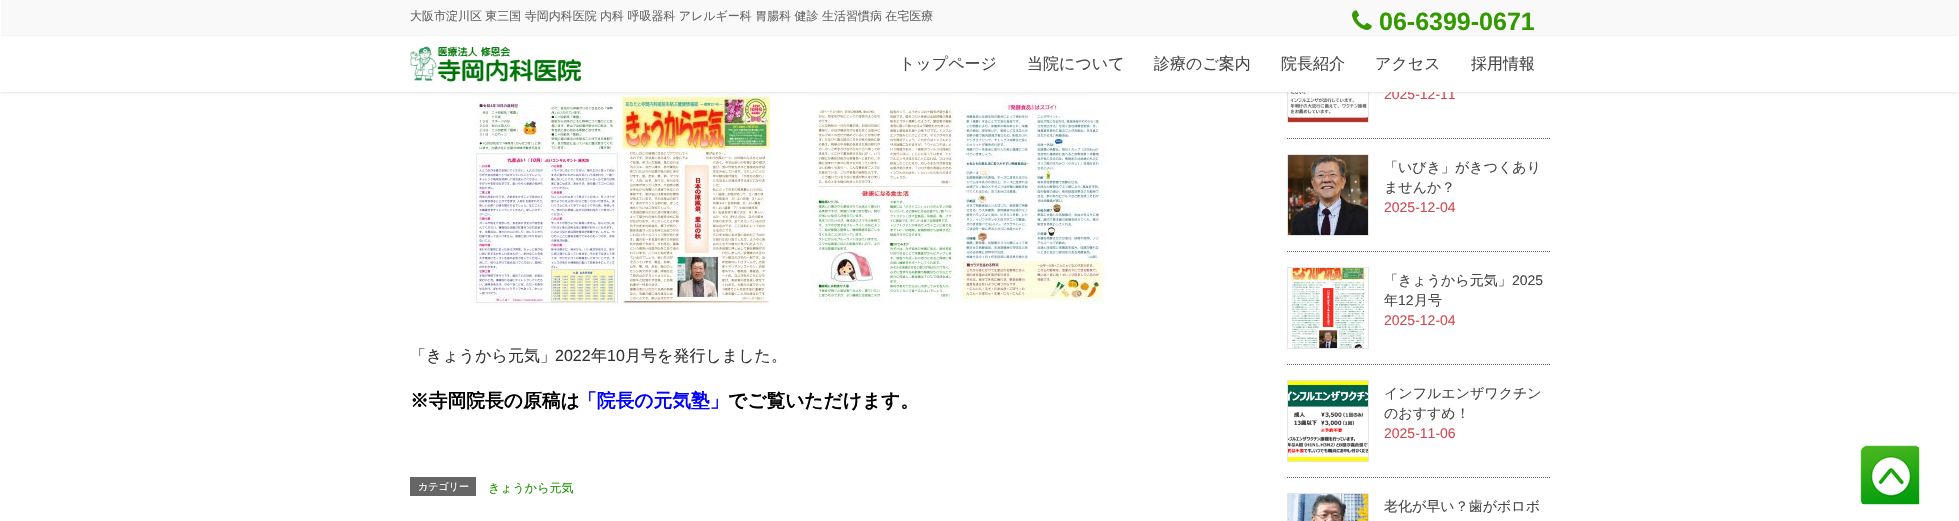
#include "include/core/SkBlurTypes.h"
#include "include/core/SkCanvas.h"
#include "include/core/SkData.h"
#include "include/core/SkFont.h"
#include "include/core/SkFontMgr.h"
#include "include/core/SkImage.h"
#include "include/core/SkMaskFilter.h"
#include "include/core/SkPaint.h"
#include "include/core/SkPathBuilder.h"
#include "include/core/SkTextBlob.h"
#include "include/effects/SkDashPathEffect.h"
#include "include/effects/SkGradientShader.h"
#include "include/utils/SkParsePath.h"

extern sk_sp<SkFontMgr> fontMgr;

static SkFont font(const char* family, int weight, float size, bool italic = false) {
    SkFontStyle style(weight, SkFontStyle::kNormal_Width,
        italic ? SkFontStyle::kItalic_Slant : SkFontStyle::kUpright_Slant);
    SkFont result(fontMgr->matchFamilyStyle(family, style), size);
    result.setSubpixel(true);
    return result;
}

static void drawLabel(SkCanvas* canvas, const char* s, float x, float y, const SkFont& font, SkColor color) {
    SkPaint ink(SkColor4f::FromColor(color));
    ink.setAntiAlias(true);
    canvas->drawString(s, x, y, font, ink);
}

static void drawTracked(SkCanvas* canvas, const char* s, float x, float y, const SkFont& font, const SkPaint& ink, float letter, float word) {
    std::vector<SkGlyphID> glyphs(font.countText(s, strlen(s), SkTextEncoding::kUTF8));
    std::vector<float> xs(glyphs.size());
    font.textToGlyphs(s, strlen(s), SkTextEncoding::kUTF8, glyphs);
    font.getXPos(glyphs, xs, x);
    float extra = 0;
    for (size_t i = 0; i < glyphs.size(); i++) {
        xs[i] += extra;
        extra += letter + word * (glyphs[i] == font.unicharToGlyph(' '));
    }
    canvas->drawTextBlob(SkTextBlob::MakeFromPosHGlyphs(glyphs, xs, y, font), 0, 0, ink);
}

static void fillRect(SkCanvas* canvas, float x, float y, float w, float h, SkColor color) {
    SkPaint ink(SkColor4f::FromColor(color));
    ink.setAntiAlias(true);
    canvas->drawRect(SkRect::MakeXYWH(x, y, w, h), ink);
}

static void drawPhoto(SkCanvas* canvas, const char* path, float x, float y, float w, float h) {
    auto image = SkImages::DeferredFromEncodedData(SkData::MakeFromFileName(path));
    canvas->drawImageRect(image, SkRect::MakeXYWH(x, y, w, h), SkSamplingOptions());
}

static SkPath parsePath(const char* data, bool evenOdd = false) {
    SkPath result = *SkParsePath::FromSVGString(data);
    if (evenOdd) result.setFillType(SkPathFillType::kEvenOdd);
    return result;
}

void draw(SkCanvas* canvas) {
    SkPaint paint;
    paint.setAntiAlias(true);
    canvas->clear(0xFFFFFFFF);
    drawPhoto(canvas, "assets/img3.png", 470, 94, 300, 213);
    drawPhoto(canvas, "assets/img4.png", 810, 94, 300, 209);
    paint.setStroke(true);
    paint.setStrokeWidth(1);
    paint.setColor(0xFFE5E5E5);
    canvas->drawRect(SkRect::MakeXYWH(1287.5f, 41.5f, 81, 81), paint);
    drawPhoto(canvas, "assets/img5.png", 1288, 92, 80, 30);
    paint.setStroke(false);
    paint.setColor(0x1A000000);
    paint.setMaskFilter(SkMaskFilter::MakeBlur(kNormal_SkBlurStyle, 1.5f));
    canvas->drawRect(SkRect::MakeXYWH(0, 1, 1959, 92), paint);
    paint.setMaskFilter(nullptr);
    SkFont font1 = font("Liberation Sans", 400, 14);
    drawLabel(canvas, "2025-12-11", 1384, 99, font1, 0xFFD44950);
    fillRect(canvas, 0, 0, 1959, 92, 0xFFFFFFFF);
    fillRect(canvas, 1, 0, 1957, 35, 0xFFF9F9F9);
    fillRect(canvas, 1, 35, 1957, 1, 0xFFF3F3F3);
    SkFont font2 = font("WenQuanYi Zen Hei", 500, 12);
    paint.setColor(0xFF666666);
    drawTracked(canvas, "大阪市淀川区 東三国 寺岡内科医院 内科 呼吸器科 アレルギー科 胃腸科 健診 生活習慣病 在宅医療", 410, 20, font2, paint, 0, -0.25f);
    drawPhoto(canvas, "assets/img1.png", 1352, 10, 20, 20);
    SkFont font3 = font("Liberation Sans", 700, 25);
    drawLabel(canvas, "06-6399-0671", 1379, 30, font3, 0xFF339900);
    drawPhoto(canvas, "assets/img2.png", 409, 46, 173, 37);
    SkFont font4 = font("WenQuanYi Zen Hei", 500, 16);
    drawLabel(canvas, "トップページ", 899, 69, font4, 0xFF464646);
    drawLabel(canvas, "当院について", 1027, 69, font4, 0xFF464646);
    drawLabel(canvas, "診療のご案内", 1154, 69, font4, 0xFF464646);
    drawLabel(canvas, "院長紹介", 1281, 69, font4, 0xFF464646);
    drawLabel(canvas, "アクセス", 1375, 69, font4, 0xFF464646);
    drawLabel(canvas, "採用情報", 1471, 69, font4, 0xFF464646);
    drawLabel(canvas, "「きょうから元気」", 410, 361, font4, 0xFF333333);
    SkFont font5 = font("Liberation Sans", 400, 16);
    drawLabel(canvas, "2022", 555, 361, font5, 0xFF333333);
    drawLabel(canvas, "年", 591, 361, font4, 0xFF333333);
    drawLabel(canvas, "10", 607, 361, font5, 0xFF333333);
    drawLabel(canvas, "月号を発行しました。", 625, 361, font4, 0xFF333333);
    SkFont font6 = font("WenQuanYi Zen Hei", 700, 18.75f);
    drawLabel(canvas, "※寺岡院長の原稿は", 410, 407, font6, 0xFF000000);
    drawLabel(canvas, "「院長の元気塾」", 578, 407, font6, 0xFF0000FF);
    drawLabel(canvas, "でご覧いただけます。", 728, 407, font6, 0xFF000000);
    fillRect(canvas, 410, 477, 66, 19, 0xFF666666);
    SkFont font7 = font("WenQuanYi Zen Hei", 500, 10);
    drawLabel(canvas, "カテゴリー", 418, 490, font7, 0xFFFFFFFF);
    drawLabel(canvas, "きょうから元気", 488, 492, font2, 0xFF1B9600);
    paint.setStroke(true);
    paint.setPathEffect(SkDashPathEffect::Make({{1, 1}}, 0));
    canvas->drawPath(parsePath("M1287 138.5H1550"), paint);
    paint.setPathEffect(nullptr);
    paint.setPathEffect(SkDashPathEffect::Make({{1, 1}}, 0));
    canvas->drawPath(parsePath("M1287 251.5H1550"), paint);
    paint.setPathEffect(nullptr);
    paint.setColor(0xFFE5E5E5);
    canvas->drawRect(SkRect::MakeXYWH(1287.5f, 154.5f, 81, 81), paint);
    drawPhoto(canvas, "assets/img6.png", 1288, 155, 80, 80);
    SkFont font8 = font("WenQuanYi Zen Hei", 500, 14);
    drawLabel(canvas, "「いびき」がきつくあり", 1384, 172, font8, 0xFF464646);
    drawLabel(canvas, "ませんか？", 1384, 192, font8, 0xFF464646);
    drawLabel(canvas, "2025-12-04", 1384, 212, font1, 0xFFD44950);
    paint.setColor(0xFF666666);
    paint.setPathEffect(SkDashPathEffect::Make({{1, 1}}, 0));
    canvas->drawPath(parsePath("M1287 364.5H1550"), paint);
    paint.setPathEffect(nullptr);
    paint.setColor(0xFFE5E5E5);
    canvas->drawRect(SkRect::MakeXYWH(1287.5f, 267.5f, 81, 81), paint);
    drawPhoto(canvas, "assets/img7.png", 1288, 268, 78, 80);
    drawLabel(canvas, "「きょうから元気」", 1384, 285, font8, 0xFF464646);
    drawLabel(canvas, "2025", 1512, 285, font1, 0xFF464646);
    drawLabel(canvas, "年", 1384, 305, font8, 0xFF464646);
    drawLabel(canvas, "12", 1398, 305, font1, 0xFF464646);
    drawLabel(canvas, "月号", 1414, 305, font8, 0xFF464646);
    drawLabel(canvas, "2025-12-04", 1384, 325, font1, 0xFFD44950);
    paint.setColor(0xFF666666);
    paint.setPathEffect(SkDashPathEffect::Make({{1, 1}}, 0));
    canvas->drawPath(parsePath("M1287 477.5H1550"), paint);
    paint.setPathEffect(nullptr);
    paint.setColor(0xFFE5E5E5);
    canvas->drawRect(SkRect::MakeXYWH(1287.5f, 380.5f, 81, 81), paint);
    drawPhoto(canvas, "assets/img8.png", 1288, 381, 80, 80);
    drawLabel(canvas, "インフルエンザワクチン", 1384, 398, font8, 0xFF464646);
    drawLabel(canvas, "のおすすめ！", 1384, 418, font8, 0xFF464646);
    drawLabel(canvas, "2025-11-06", 1384, 438, font1, 0xFFD44950);
    canvas->drawRect(SkRect::MakeXYWH(1287.5f, 493.5f, 81, 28), paint);
    drawPhoto(canvas, "assets/img9.png", 1288, 494, 80, 27);
    drawLabel(canvas, "老化が早い？歯がボロボ", 1384, 511, font8, 0xFF464646);
    drawPhoto(canvas, "assets/img10.png", 1860, 445, 60, 60);
    paint.setColor(0xCCFFFFFF);
    canvas->drawRect(SkRect::MakeXYWH(1860.5f, 445.5f, 59, 59), paint);
}
